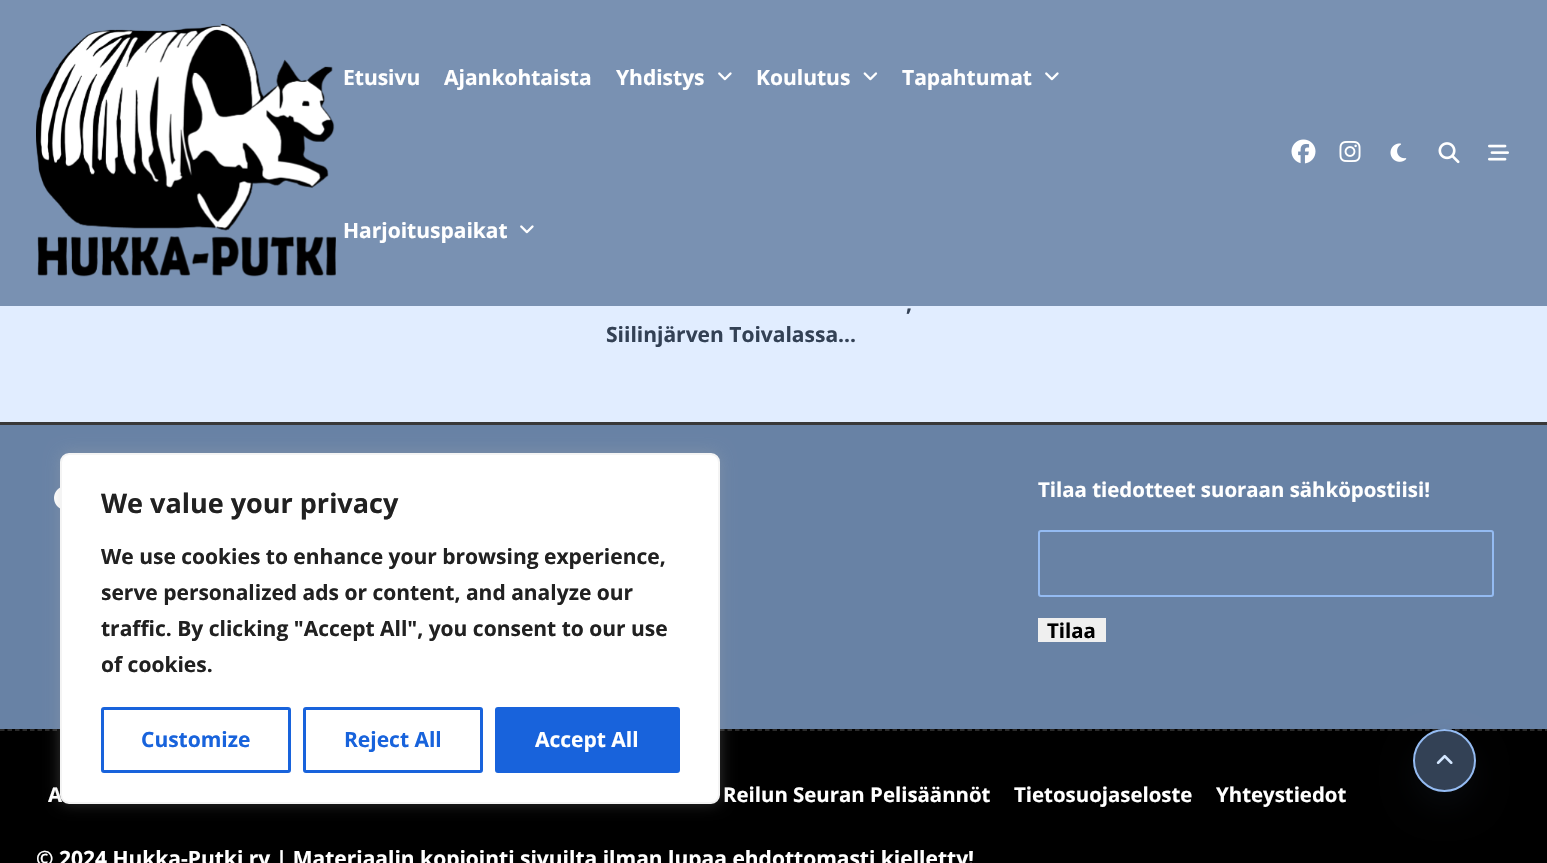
#include "include/core/SkBlurTypes.h"
#include "include/core/SkCanvas.h"
#include "include/core/SkData.h"
#include "include/core/SkFont.h"
#include "include/core/SkFontMgr.h"
#include "include/core/SkImage.h"
#include "include/core/SkMaskFilter.h"
#include "include/core/SkPaint.h"
#include "include/core/SkPathBuilder.h"
#include "include/core/SkTextBlob.h"
#include "include/effects/SkDashPathEffect.h"
#include "include/effects/SkGradientShader.h"
#include "include/utils/SkParsePath.h"

extern sk_sp<SkFontMgr> fontMgr;

static SkFont font(const char* family, int weight, float size, bool italic = false) {
    SkFontStyle style(weight, SkFontStyle::kNormal_Width,
        italic ? SkFontStyle::kItalic_Slant : SkFontStyle::kUpright_Slant);
    SkFont result(fontMgr->matchFamilyStyle(family, style), size);
    result.setSubpixel(true);
    return result;
}

static void drawLabel(SkCanvas* canvas, const char* s, float x, float y, const SkFont& font, SkColor color) {
    SkPaint ink(SkColor4f::FromColor(color));
    ink.setAntiAlias(true);
    canvas->drawString(s, x, y, font, ink);
}

static void fillRect(SkCanvas* canvas, float x, float y, float w, float h, SkColor color) {
    SkPaint ink(SkColor4f::FromColor(color));
    ink.setAntiAlias(true);
    canvas->drawRect(SkRect::MakeXYWH(x, y, w, h), ink);
}

static void drawPhoto(SkCanvas* canvas, const char* path, float x, float y, float w, float h) {
    auto image = SkImages::DeferredFromEncodedData(SkData::MakeFromFileName(path));
    canvas->drawImageRect(image, SkRect::MakeXYWH(x, y, w, h), SkSamplingOptions());
}

static SkPath parsePath(const char* data, bool evenOdd = false) {
    SkPath result = *SkParsePath::FromSVGString(data);
    if (evenOdd) result.setFillType(SkPathFillType::kEvenOdd);
    return result;
}

void draw(SkCanvas* canvas) {
    SkPaint paint;
    paint.setAntiAlias(true);
    canvas->clear(0xFFE1EDFF);
    fillRect(canvas, 0, 0, 1547, 306, 0xDE6883A6);
    drawPhoto(canvas, "assets/img1.png", 36, 23, 300, 254);
    SkFont font1 = font("Open Sans", 700, 21);
    drawLabel(canvas, "Etusivu", 343, 85, font1, 0xFFFFFFFF);
    drawLabel(canvas, "Ajankohtaista", 444, 85, font1, 0xFFFFFFFF);
    drawLabel(canvas, "Yhdistys", 616, 85, font1, 0xFFFFFFFF);
    drawPhoto(canvas, "assets/img2.png", 718, 72, 14, 9);
    drawLabel(canvas, "Koulutus", 756, 85, font1, 0xFFFFFFFF);
    drawPhoto(canvas, "assets/img3.png", 863, 72, 15, 9);
    drawLabel(canvas, "Tapahtumat", 902, 85, font1, 0xFFFFFFFF);
    drawPhoto(canvas, "assets/img4.png", 1045, 72, 14, 9);
    drawLabel(canvas, "Harjoituspaikat", 343, 238, font1, 0xFFFFFFFF);
    drawPhoto(canvas, "assets/img5.png", 520, 225, 14, 9);
    drawPhoto(canvas, "assets/img6.png", 1291, 139, 25, 25);
    drawPhoto(canvas, "assets/img7.png", 1339, 141, 22, 21);
    drawPhoto(canvas, "assets/img8.png", 1390, 143, 17, 19);
    drawPhoto(canvas, "assets/img9.png", 1438, 142, 22, 22);
    drawPhoto(canvas, "assets/img10.png", 1488, 144, 21, 17);
    drawLabel(canvas, ",", 906, 311, font1, 0xFF334155);
    drawLabel(canvas, "Siilinjärven Toivalassa...", 606, 342, font1, 0xFF334155);
    fillRect(canvas, 0, 425, 1547, 304, 0xFF6882A5);
    fillRect(canvas, 0, 422, 1547, 3, 0xFF383838);
    drawPhoto(canvas, "assets/img11.png", 54, 487, 6, 22);
    SkFont font2 = font("Open Sans", 700, 20.4f);
    drawLabel(canvas, "Tilaa tiedotteet suoraan sähköpostiisi!", 1038, 497, font2, 0xFFFFFFFF);
    paint.setStroke(true);
    paint.setStrokeWidth(2);
    paint.setColor(0xFF94BBF2);
    canvas->drawRoundRect(SkRect::MakeXYWH(1039, 531, 454, 65), 2, 2, paint);
    fillRect(canvas, 1038, 618, 68, 24, 0xFFEFEFEF);
    drawLabel(canvas, "Tilaa", 1047, 638, font2, 0xFF000000);
    fillRect(canvas, 0, 729, 1547, 134, 0xFF000000);
    paint.setStrokeWidth(1.5f);
    paint.setColor(0xFF383838);
    paint.setPathEffect(SkDashPathEffect::Make({{4.5f, 3}}, 0));
    canvas->drawPath(parsePath("M0 730H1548"), paint);
    paint.setPathEffect(nullptr);
    drawLabel(canvas, "A", 48, 802, font2, 0xFFFFFFFF);
    drawLabel(canvas, "Reilun Seuran Pelisäännöt", 723, 802, font2, 0xFFFFFFFF);
    drawLabel(canvas, "Tietosuojaseloste", 1014, 802, font2, 0xFFFFFFFF);
    drawLabel(canvas, "Yhteystiedot", 1216, 802, font2, 0xFFFFFFFF);
    drawLabel(canvas, "© 2024 Hukka-Putki ry | Materiaalin kopiointi sivuilta ilman lupaa ehdottomasti kielletty!", 36, 866, font1, 0xFFFFFFFF);
    paint.setStroke(false);
    paint.setColor(0x262C3E50);
    paint.setMaskFilter(SkMaskFilter::MakeBlur(kNormal_SkBlurStyle, 15));
    canvas->drawRoundRect(SkRect::MakeXYWH(1413, 744, 63, 63), 31.5f, 31.5f, paint);
    paint.setMaskFilter(nullptr);
    paint.setColor(0xFF334155);
    canvas->drawCircle(1444.5f, 760.5f, 30.5f, paint);
    paint.setStroke(true);
    paint.setStrokeWidth(2);
    paint.setColor(0xFF94BBF2);
    canvas->drawCircle(1444.5f, 760.5f, 30.5f, paint);
    drawPhoto(canvas, "assets/img12.png", 1436, 754, 17, 10);
    paint.setStroke(false);
    paint.setColor(0x4DACABAB);
    paint.setMaskFilter(SkMaskFilter::MakeBlur(kNormal_SkBlurStyle, 7.5f));
    canvas->drawRoundRect(SkRect::MakeXYWH(60, 452, 660, 351), 9, 9, paint);
    paint.setMaskFilter(nullptr);
    paint.setColor(0xFFFFFFFF);
    canvas->drawRoundRect(SkRect::MakeXYWH(61, 454, 658, 349), 8, 8, paint);
    paint.setStroke(true);
    paint.setColor(0xFFF4F4F4);
    canvas->drawRoundRect(SkRect::MakeXYWH(61, 454, 658, 349), 8, 8, paint);
    SkFont font3 = font("Open Sans", 700, 27);
    drawLabel(canvas, "We value your privacy", 101, 513, font3, 0xFF212121);
    drawLabel(canvas, "We use cookies to enhance your browsing experience,", 101, 564, font1, 0xFF212121);
    drawLabel(canvas, "serve personalized ads or content, and analyze our", 101, 600, font1, 0xFF212121);
    drawLabel(canvas, "traffic. By clicking \"Accept All\", you consent to our use", 101, 636, font1, 0xFF212121);
    drawLabel(canvas, "of cookies.", 101, 672, font1, 0xFF212121);
    paint.setStrokeWidth(3);
    paint.setColor(0xFF1863DC);
    canvas->drawRoundRect(SkRect::MakeXYWH(102.5f, 708.5f, 187, 63), 1.5f, 1.5f, paint);
    drawLabel(canvas, "Customize", 141, 747, font1, 0xFF1863DC);
    canvas->drawRoundRect(SkRect::MakeXYWH(304.5f, 708.5f, 177, 63), 1.5f, 1.5f, paint);
    drawLabel(canvas, "Reject All", 344, 747, font1, 0xFF1863DC);
    paint.setStroke(false);
    canvas->drawRoundRect(SkRect::MakeXYWH(496.5f, 708.5f, 182, 63), 1.5f, 1.5f, paint);
    paint.setStroke(true);
    canvas->drawRoundRect(SkRect::MakeXYWH(496.5f, 708.5f, 182, 63), 1.5f, 1.5f, paint);
    drawLabel(canvas, "Accept All", 535, 747, font1, 0xFFFFFFFF);
}
